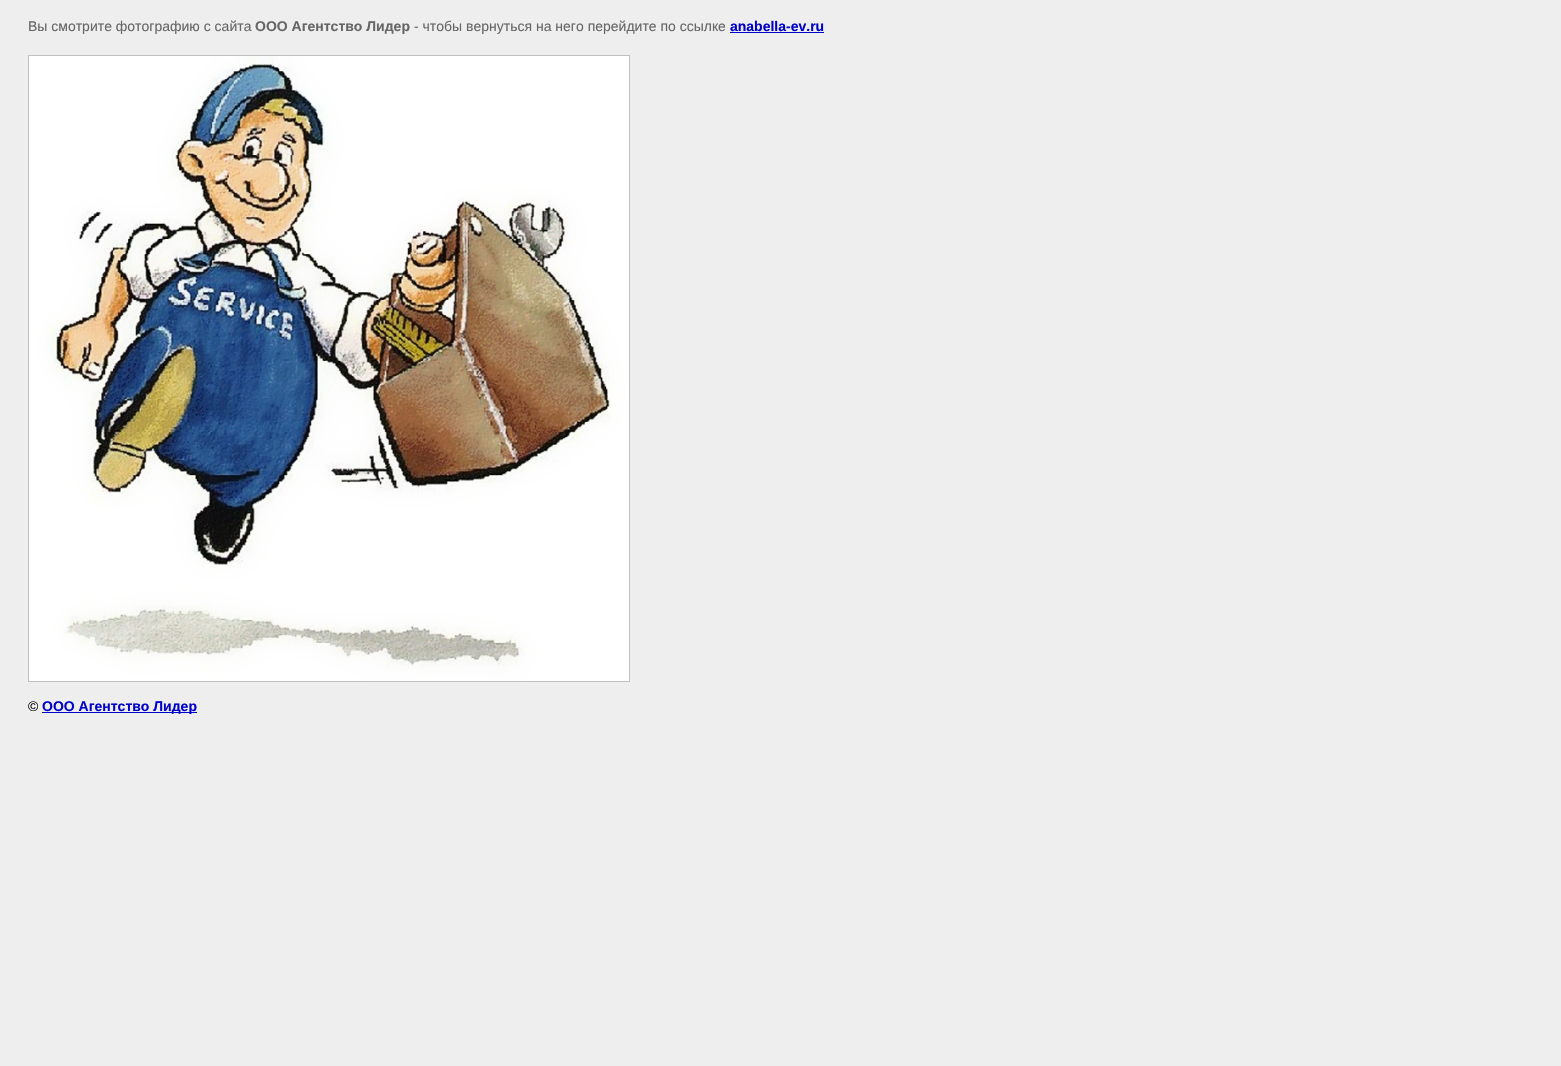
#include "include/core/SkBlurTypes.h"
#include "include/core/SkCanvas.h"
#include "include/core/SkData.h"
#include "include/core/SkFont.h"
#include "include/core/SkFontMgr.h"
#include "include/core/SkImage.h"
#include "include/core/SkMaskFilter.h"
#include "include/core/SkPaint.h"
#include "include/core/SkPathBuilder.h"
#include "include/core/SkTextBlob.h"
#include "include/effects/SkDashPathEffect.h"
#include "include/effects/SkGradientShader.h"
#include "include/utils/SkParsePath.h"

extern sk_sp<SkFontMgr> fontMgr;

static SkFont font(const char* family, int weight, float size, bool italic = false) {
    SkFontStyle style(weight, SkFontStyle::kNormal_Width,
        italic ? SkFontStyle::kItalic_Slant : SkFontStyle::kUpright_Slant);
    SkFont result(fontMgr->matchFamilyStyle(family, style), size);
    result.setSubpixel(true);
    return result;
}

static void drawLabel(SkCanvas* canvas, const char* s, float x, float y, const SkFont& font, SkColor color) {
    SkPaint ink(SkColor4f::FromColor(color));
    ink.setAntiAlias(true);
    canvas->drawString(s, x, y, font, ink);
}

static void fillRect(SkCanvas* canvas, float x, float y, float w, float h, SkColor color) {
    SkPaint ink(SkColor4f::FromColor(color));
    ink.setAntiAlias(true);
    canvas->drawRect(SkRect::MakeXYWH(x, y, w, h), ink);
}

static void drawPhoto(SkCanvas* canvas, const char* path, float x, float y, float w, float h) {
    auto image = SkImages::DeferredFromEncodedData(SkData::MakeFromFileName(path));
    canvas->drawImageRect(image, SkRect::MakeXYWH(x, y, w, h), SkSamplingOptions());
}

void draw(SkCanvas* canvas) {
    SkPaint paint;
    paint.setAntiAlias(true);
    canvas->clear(0xFFEEEEEE);
    SkFont font1 = font("Liberation Sans", 400, 14);
    drawLabel(canvas, "Вы смотрите фотографию с сайта", 28, 31, font1, 0xFF666666);
    SkFont font2 = font("Liberation Sans", 700, 14);
    drawLabel(canvas, "ООО Агентство Лидер", 255, 31, font2, 0xFF666666);
    drawLabel(canvas, "- чтобы вернуться на него перейдите по ссылке", 414, 31, font1, 0xFF666666);
    drawLabel(canvas, "anabella-ev.ru", 730, 31, font2, 0xFF0000CC);
    fillRect(canvas, 730, 32, 94, 1, 0xFF0000CC);
    paint.setStroke(true);
    paint.setStrokeWidth(1);
    paint.setColor(0xFFC0C0C0);
    canvas->drawRect(SkRect::MakeXYWH(28.5f, 55.5f, 601, 626), paint);
    drawPhoto(canvas, "assets/img1.png", 29, 56, 600, 625);
    drawLabel(canvas, "©", 28, 711, font1, 0xFF000000);
    fillRect(canvas, 42, 712, 155, 1, 0xFF0000CC);
    drawLabel(canvas, "ООО Агентство Лидер", 42, 711, font2, 0xFF0000CC);
}
